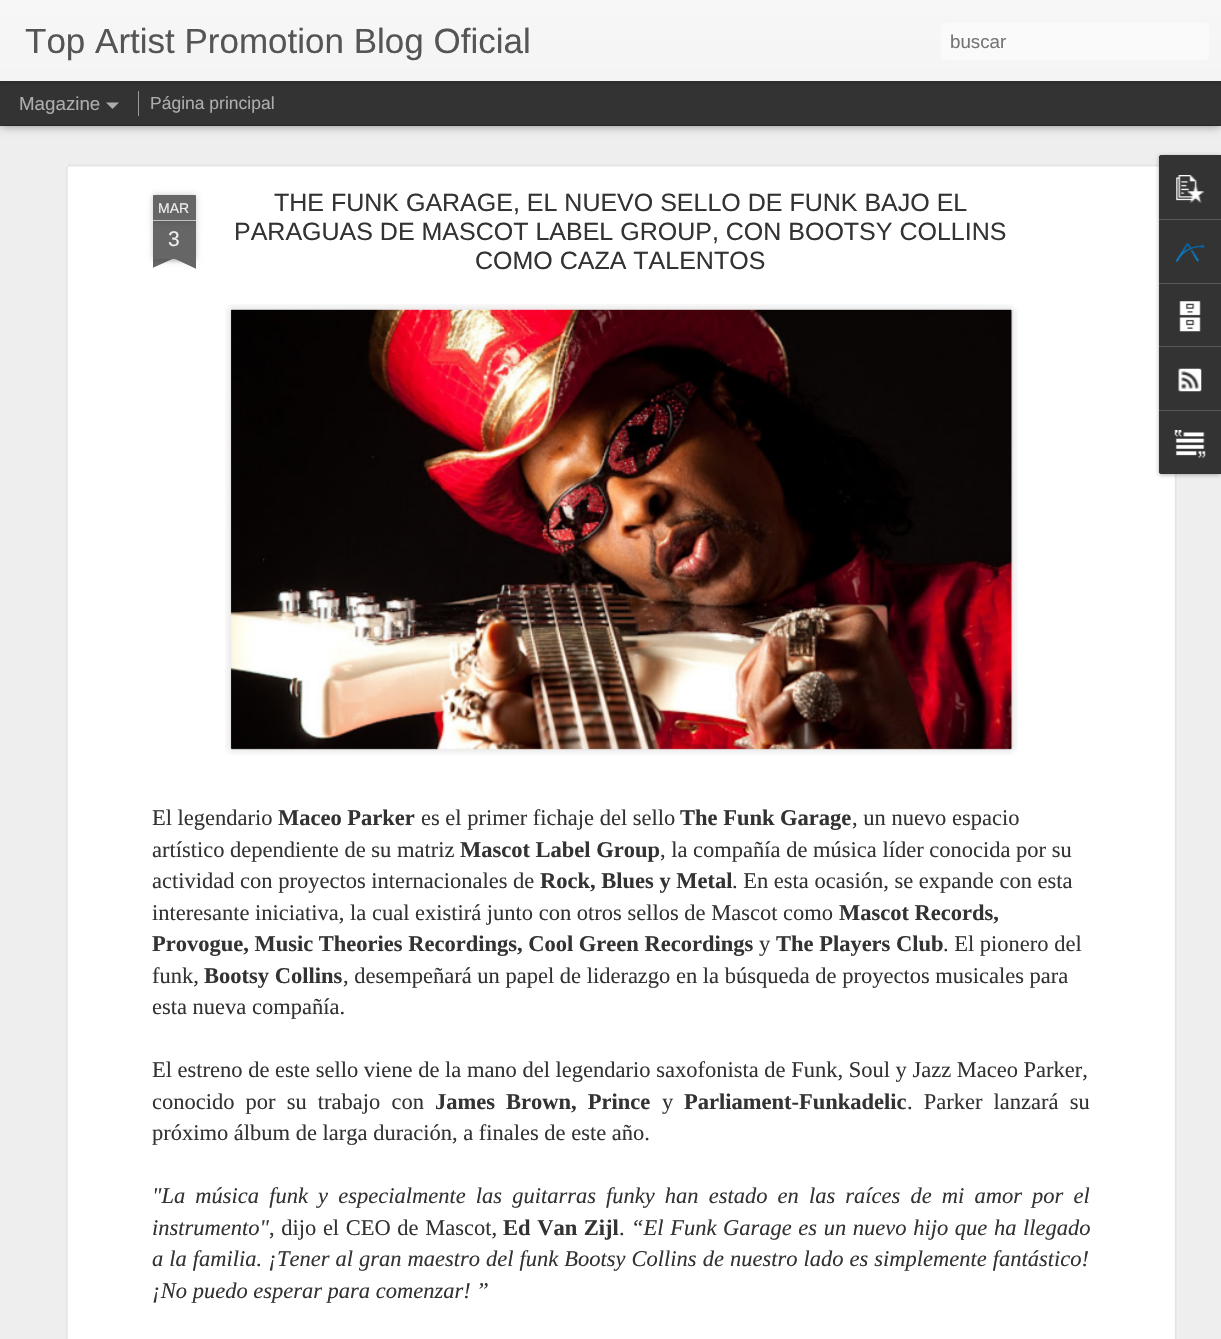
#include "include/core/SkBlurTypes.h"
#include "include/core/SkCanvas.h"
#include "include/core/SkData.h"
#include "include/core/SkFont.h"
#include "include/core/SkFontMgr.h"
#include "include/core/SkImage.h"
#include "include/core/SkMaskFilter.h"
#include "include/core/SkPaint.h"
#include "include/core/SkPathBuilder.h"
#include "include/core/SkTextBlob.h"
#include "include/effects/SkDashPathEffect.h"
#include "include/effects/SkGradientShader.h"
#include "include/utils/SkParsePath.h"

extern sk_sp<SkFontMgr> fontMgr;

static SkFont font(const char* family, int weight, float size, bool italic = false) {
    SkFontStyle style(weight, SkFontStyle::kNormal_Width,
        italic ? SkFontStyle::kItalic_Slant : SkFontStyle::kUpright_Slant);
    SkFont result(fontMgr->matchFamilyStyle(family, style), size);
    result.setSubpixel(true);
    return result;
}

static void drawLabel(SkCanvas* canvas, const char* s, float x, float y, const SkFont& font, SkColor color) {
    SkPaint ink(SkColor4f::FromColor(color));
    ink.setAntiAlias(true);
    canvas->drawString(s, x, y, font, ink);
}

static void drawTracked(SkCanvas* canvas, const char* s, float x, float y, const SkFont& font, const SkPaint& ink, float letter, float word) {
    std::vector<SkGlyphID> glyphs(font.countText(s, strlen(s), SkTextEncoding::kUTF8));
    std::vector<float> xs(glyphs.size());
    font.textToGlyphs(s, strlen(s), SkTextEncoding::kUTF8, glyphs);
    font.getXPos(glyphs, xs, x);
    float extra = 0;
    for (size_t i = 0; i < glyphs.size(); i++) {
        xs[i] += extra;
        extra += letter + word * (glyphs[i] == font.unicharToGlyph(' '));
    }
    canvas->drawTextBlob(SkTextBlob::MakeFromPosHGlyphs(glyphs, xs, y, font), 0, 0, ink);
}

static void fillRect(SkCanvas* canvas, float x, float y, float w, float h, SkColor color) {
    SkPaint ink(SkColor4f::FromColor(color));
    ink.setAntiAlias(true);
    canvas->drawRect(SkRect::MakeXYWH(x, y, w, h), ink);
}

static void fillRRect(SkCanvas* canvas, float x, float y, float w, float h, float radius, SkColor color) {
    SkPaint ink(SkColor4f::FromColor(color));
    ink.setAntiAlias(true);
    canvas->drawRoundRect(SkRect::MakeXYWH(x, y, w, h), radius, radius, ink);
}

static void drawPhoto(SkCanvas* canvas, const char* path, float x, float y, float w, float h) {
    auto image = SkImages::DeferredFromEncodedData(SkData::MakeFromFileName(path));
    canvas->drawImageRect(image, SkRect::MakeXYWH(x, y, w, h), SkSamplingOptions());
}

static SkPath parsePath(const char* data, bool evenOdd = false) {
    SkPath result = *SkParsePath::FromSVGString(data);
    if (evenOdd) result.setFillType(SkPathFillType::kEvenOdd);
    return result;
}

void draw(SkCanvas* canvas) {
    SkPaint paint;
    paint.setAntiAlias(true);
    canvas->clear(0xFF333333);
    fillRect(canvas, 0, 126, 1221, 1213, 0xFFEEEEEE);
    paint.setColor(0x80000000);
    paint.setMaskFilter(SkMaskFilter::MakeBlur(kNormal_SkBlurStyle, 5));
    canvas->drawRect(SkRect::MakeXYWH(0, 81, 1221, 44), paint);
    paint.setMaskFilter(nullptr);
    fillRect(canvas, 0, 81, 1221, 44, 0xFF333333);
    paint.setColor(0x4D000000);
    paint.setMaskFilter(SkMaskFilter::MakeBlur(kNormal_SkBlurStyle, 3));
    canvas->drawRect(SkRect::MakeXYWH(0, 0, 1221, 81), paint);
    paint.setMaskFilter(nullptr);
    {
        const SkColor colors[] = {0xFFF7F7F7, 0xFFF4F4F4};
        const float stops[] = {0, 1};
        const SkPoint ends[] = {{0, 0}, {0, 81}};
        paint.setShader(SkGradientShader::MakeLinear(ends, colors, stops, 2, SkTileMode::kClamp));
        paint.setAlpha(255);
    }
    canvas->drawRect(SkRect::MakeXYWH(0, 0, 1221, 81), paint);
    SkFont font1 = font("Liberation Sans", 400, 35);
    drawLabel(canvas, "Top Artist Promotion Blog Oficial", 25, 53, font1, 0xFF555555);
    fillRRect(canvas, 941, 23, 268, 37, 4, 0xFFFAFAFA);
    SkFont font2 = font("Liberation Sans", 400, 18.75f);
    drawLabel(canvas, "buscar", 950, 48, font2, 0xFF757575);
    drawLabel(canvas, "Magazine", 19, 110, font2, 0xFFADADAD);
    paint.setShader(nullptr);
    paint.setColor(0xFFADADAD);
    canvas->drawPath(parsePath("M106 102.5H119L112.5 109Z"), paint);
    fillRect(canvas, 138, 91, 1, 25, 0xFF999999);
    SkFont font3 = font("Liberation Sans", 400, 17.5f);
    drawLabel(canvas, "Página principal", 150, 109, font3, 0xFFADADAD);
    fillRect(canvas, 65, 164, 1113, 1175, 0xFFFFFFFF);
    drawPhoto(canvas, "assets/img1.png", 65, 164, 1113, 1175);
    paint.setColor(0x33000000);
    paint.setMaskFilter(SkMaskFilter::MakeBlur(kNormal_SkBlurStyle, 3));
    canvas->drawRect(SkRect::MakeXYWH(153, 221, 43, 38), paint);
    paint.setMaskFilter(nullptr);
    fillRect(canvas, 153, 221, 43, 38, 0xFF666666);
    paint.setMaskFilter(SkMaskFilter::MakeBlur(kNormal_SkBlurStyle, 3));
    canvas->drawRoundRect(SkRect::MakeXYWH(153, 195, 43, 26), 1, 1, paint);
    paint.setMaskFilter(nullptr);
    paint.setColor(0xFF666666);
    canvas->drawPath(parsePath("M154 195H195C195.5 195 196 195.5 196 196V221H153V196C153 195.5 153.5 195 154 195Z"), paint);
    fillRect(canvas, 153, 220, 43, 1, 0xFFC2C2C2);
    SkFont font4 = font("Liberation Sans", 400, 14);
    drawLabel(canvas, "MAR", 158, 213, font4, 0xFFEEEEEE);
    SkFont font5 = font("Liberation Sans", 400, 21);
    drawLabel(canvas, "3", 168, 246, font5, 0xFFEEEEEE);
    canvas->save();
    canvas->clipRect(SkRect::MakeXYWH(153, 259, 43, 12));
    paint.setColor(0x33000000);
    paint.setMaskFilter(SkMaskFilter::MakeBlur(kNormal_SkBlurStyle, 3));
    canvas->drawRect(SkRect::MakeXYWH(141, 246, 63, 13), paint);
    paint.setMaskFilter(nullptr);
    canvas->restore();
    canvas->save();
    canvas->clipRect(SkRect::MakeXYWH(153, 259, 43, 12));
    paint.setColor(0xFF666666);
    canvas->drawPath(parsePath("M141 260L198 234L203 245L146 271Z"), paint);
    canvas->restore();
    canvas->save();
    canvas->clipRect(SkRect::MakeXYWH(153, 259, 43, 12));
    paint.setColor(0x33000000);
    paint.setMaskFilter(SkMaskFilter::MakeBlur(kNormal_SkBlurStyle, 3));
    canvas->drawRect(SkRect::MakeXYWH(145, 246, 63, 13), paint);
    paint.setMaskFilter(nullptr);
    canvas->restore();
    canvas->save();
    canvas->clipRect(SkRect::MakeXYWH(153, 259, 43, 12));
    paint.setColor(0xFF666666);
    canvas->drawPath(parsePath("M150 234L207 260L201 271L145 245Z"), paint);
    canvas->restore();
    SkFont font6 = font("Liberation Sans", 400, 25);
    drawLabel(canvas, "THE FUNK GARAGE, EL NUEVO SELLO DE FUNK BAJO EL", 274, 211, font6, 0xFF333333);
    drawLabel(canvas, "PARAGUAS DE MASCOT LABEL GROUP, CON BOOTSY COLLINS", 234, 240, font6, 0xFF333333);
    drawLabel(canvas, "COMO CAZA TALENTOS", 475, 269, font6, 0xFF333333);
    drawPhoto(canvas, "assets/img2.png", 225, 304, 793, 451);
    drawPhoto(canvas, "assets/img3.png", 230, 309, 783, 441);
    SkFont font7 = font("Liberation Serif", 400, 22.5f);
    drawLabel(canvas, "El legendario", 152, 825, font7, 0xFF333333);
    SkFont font8 = font("Liberation Serif", 700, 22.5f);
    drawLabel(canvas, "Maceo Parker", 278, 825, font8, 0xFF333333);
    drawLabel(canvas, "es el primer fichaje del sello", 421, 825, font7, 0xFF333333);
    drawLabel(canvas, "The Funk Garage", 680, 825, font8, 0xFF333333);
    drawLabel(canvas, ", un nuevo espacio", 852, 825, font7, 0xFF333333);
    drawLabel(canvas, "artístico dependiente de su matriz", 152, 857, font7, 0xFF333333);
    drawLabel(canvas, "Mascot Label Group", 460, 857, font8, 0xFF333333);
    drawLabel(canvas, ", la compañía de música líder conocida por su", 660, 857, font7, 0xFF333333);
    drawLabel(canvas, "actividad con proyectos internacionales de", 152, 888, font7, 0xFF333333);
    drawLabel(canvas, "Rock, Blues y Metal", 540, 888, font8, 0xFF333333);
    drawLabel(canvas, ". En esta ocasión, se expande con esta", 732, 888, font7, 0xFF333333);
    drawLabel(canvas, "interesante iniciativa, la cual existirá junto con otros sellos de Mascot como", 152, 920, font7, 0xFF333333);
    drawLabel(canvas, "Mascot Records,", 839, 920, font8, 0xFF333333);
    drawLabel(canvas, "Provogue, Music Theories Recordings, Cool Green Recordings", 152, 951, font8, 0xFF333333);
    drawLabel(canvas, "y", 759, 951, font7, 0xFF333333);
    drawLabel(canvas, "The Players Club", 776, 951, font8, 0xFF333333);
    drawLabel(canvas, ". El pionero del", 943, 951, font7, 0xFF333333);
    drawLabel(canvas, "funk,", 152, 983, font7, 0xFF333333);
    drawLabel(canvas, "Bootsy Collins", 204, 983, font8, 0xFF333333);
    drawLabel(canvas, ", desempeñará un papel de liderazgo en la búsqueda de proyectos musicales para", 343, 983, font7, 0xFF333333);
    drawLabel(canvas, "esta nueva compañía.", 152, 1014, font7, 0xFF333333);
    drawLabel(canvas, "El estreno de este sello viene de la mano del legendario saxofonista de Funk, Soul y Jazz Maceo Parker,", 152, 1077, font7, 0xFF333333);
    paint.setColor(0xFF333333);
    drawTracked(canvas, "conocido por su trabajo con", 152, 1109, font7, paint, 0, 5.5f);
    drawTracked(canvas, "James Brown, Prince", 435, 1109, font8, paint, 0, 5.5f);
    drawLabel(canvas, "y", 662, 1109, font7, 0xFF333333);
    drawLabel(canvas, "Parliament-Funkadelic", 684, 1109, font8, 0xFF333333);
    drawTracked(canvas, ". Parker lanzará su", 907, 1109, font7, paint, 0, 5.5f);
    drawLabel(canvas, "próximo álbum de larga duración, a finales de este año.", 152, 1140, font7, 0xFF333333);
    SkFont font9 = font("Liberation Serif", 400, 22.5f, true);
    drawTracked(canvas, "\"La música funk y especialmente las guitarras funky han estado en las raíces de mi amor por el", 152, 1203, font9, paint, 0, 4.5f);
    drawLabel(canvas, "instrumento\"", 152, 1235, font9, 0xFF333333);
    drawTracked(canvas, ", dijo el CEO de Mascot,", 269, 1235, font7, paint, 0, 1);
    drawTracked(canvas, "Ed Van Zijl", 503, 1235, font8, paint, 0, 1);
    drawLabel(canvas, ".", 619, 1235, font7, 0xFF333333);
    drawTracked(canvas, "“El Funk Garage es un nuevo hijo que ha llegado", 631, 1235, font9, paint, 0, 1);
    drawTracked(canvas, "a la familia. ¡Tener al gran maestro del funk Bootsy Collins de nuestro lado es simplemente fantástico!", 152, 1266, font9, paint, 0, 0.4f);
    drawLabel(canvas, "¡No puedo esperar para comenzar! ”", 152, 1298, font9, 0xFF333333);
    paint.setColor(0x4D000000);
    paint.setMaskFilter(SkMaskFilter::MakeBlur(kNormal_SkBlurStyle, 2));
    canvas->drawRoundRect(SkRect::MakeXYWH(1159, 156, 62, 319), 2.5f, 2.5f, paint);
    paint.setMaskFilter(nullptr);
    paint.setColor(0xFF333333);
    canvas->drawPath(parsePath("M1161.5 155H1221V474H1161.5C1160 474 1159 473 1159 471.5V157.5C1159 156 1160 155 1161.5 155Z"), paint);
    canvas->drawPath(parsePath("M1161.5 155H1221V219H1159V157.5C1159 156 1160 155 1161.5 155Z"), paint);
    drawPhoto(canvas, "assets/img4.png", 1176, 175, 29, 28);
    fillRect(canvas, 1159, 219, 62, 1, 0xFF585858);
    drawPhoto(canvas, "assets/img5.png", 1175, 242, 31, 20);
    fillRect(canvas, 1159, 283, 62, 1, 0xFF585858);
    drawPhoto(canvas, "assets/img6.png", 1179, 301, 22, 31);
    fillRect(canvas, 1159, 346, 62, 1, 0xFF585858);
    drawPhoto(canvas, "assets/img7.png", 1178, 368, 24, 24);
    canvas->drawPath(parsePath("M1159 410H1221V474H1161.5C1160 474 1159 473 1159 471.5Z"), paint);
    fillRect(canvas, 1159, 410, 62, 1, 0xFF585858);
    drawPhoto(canvas, "assets/img8.png", 1174, 430, 32, 28);
}
